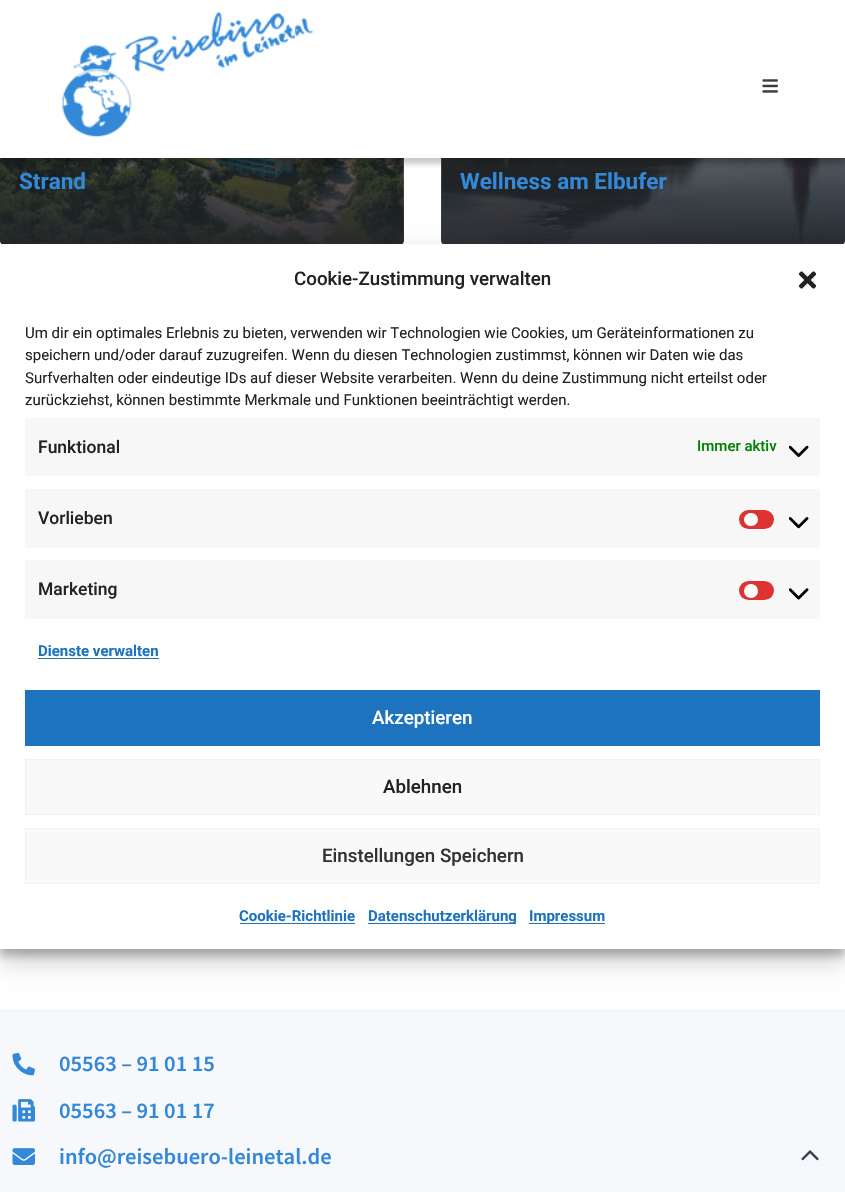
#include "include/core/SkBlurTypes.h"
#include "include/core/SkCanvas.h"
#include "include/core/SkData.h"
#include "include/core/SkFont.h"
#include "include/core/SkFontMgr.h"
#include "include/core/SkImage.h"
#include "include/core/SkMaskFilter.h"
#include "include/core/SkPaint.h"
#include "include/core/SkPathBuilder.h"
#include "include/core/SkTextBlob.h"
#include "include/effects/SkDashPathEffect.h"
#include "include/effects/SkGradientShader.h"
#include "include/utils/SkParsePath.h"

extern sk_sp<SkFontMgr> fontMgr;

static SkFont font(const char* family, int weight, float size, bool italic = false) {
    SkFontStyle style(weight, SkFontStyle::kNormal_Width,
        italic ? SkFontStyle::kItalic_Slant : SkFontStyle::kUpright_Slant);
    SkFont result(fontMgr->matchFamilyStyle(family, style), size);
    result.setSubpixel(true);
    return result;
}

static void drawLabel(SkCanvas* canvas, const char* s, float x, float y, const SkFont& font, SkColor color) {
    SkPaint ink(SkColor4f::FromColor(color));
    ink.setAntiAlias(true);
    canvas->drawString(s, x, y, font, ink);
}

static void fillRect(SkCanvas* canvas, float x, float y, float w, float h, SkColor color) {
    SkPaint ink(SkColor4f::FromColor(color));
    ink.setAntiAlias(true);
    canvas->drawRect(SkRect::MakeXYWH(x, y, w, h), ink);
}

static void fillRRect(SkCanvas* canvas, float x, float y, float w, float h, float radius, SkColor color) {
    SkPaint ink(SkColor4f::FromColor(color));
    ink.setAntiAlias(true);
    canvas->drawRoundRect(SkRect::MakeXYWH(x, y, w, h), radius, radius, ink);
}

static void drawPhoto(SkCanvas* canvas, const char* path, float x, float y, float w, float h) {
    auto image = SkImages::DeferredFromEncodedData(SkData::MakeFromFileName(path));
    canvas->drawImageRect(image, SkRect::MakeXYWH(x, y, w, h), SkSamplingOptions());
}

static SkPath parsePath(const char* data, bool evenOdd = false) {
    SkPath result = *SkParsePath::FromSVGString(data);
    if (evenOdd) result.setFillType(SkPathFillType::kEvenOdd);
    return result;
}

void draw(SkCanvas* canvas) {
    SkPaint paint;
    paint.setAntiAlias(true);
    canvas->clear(0xFFFFFFFF);
    drawPhoto(canvas, "assets/img3.png", 0, 158, 404, 86);
    fillRRect(canvas, 0, -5, 404, 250, 5, 0x1A000000);
    {
        const SkColor colors[] = {0x007ABCFF, 0x00212429, 0xA8212429, 0xE3212429, 0xE6212429};
        const float stops[] = {0, 0.15f, 0.76f, 0.97f, 0.98f};
        const SkPoint ends[] = {{202, -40}, {202, 245}};
        paint.setShader(SkGradientShader::MakeLinear(ends, colors, stops, 5, SkTileMode::kClamp));
        paint.setAlpha(255);
    }
    canvas->drawPath(parsePath("M0-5H404V240C404 243 402 245 399 245H5C2 245 0 243 0 240Z"), paint);
    drawPhoto(canvas, "assets/img4.png", 441, 158, 404, 86);
    fillRRect(canvas, 441, -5, 404, 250, 5, 0x1A000000);
    {
        const SkColor colors[] = {0x007ABCFF, 0x00212429, 0xA8212429, 0xE3212429, 0xE6212429};
        const float stops[] = {0, 0.15f, 0.76f, 0.97f, 0.98f};
        const SkPoint ends[] = {{643, -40}, {643, 245}};
        paint.setShader(SkGradientShader::MakeLinear(ends, colors, stops, 5, SkTileMode::kClamp));
        paint.setAlpha(255);
    }
    canvas->drawPath(parsePath("M441-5H845V240C845 243 843 245 840 245H446C443 245 441 243 441 240Z"), paint);
    paint.setShader(nullptr);
    paint.setColor(0x33000000);
    paint.setMaskFilter(SkMaskFilter::MakeBlur(kNormal_SkBlurStyle, 2.5f));
    canvas->drawRect(SkRect::MakeXYWH(-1, 4, 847, 160), paint);
    paint.setMaskFilter(nullptr);
    fillRect(canvas, 0, 0, 845, 158, 0xFFFFFFFF);
    drawPhoto(canvas, "assets/img1.png", 62, 12, 251, 125);
    drawPhoto(canvas, "assets/img2.png", 762, 79, 16, 14);
    SkFont font1 = font("Roboto", 700, 22.5f);
    drawLabel(canvas, "Strand", 19, 189, font1, 0xFF3388D7);
    drawLabel(canvas, "Wellness am Elbufer", 460, 189, font1, 0xFF3388D7);
    fillRect(canvas, 0, 1009, 845, 183, 0xFFF6F8FB);
    drawPhoto(canvas, "assets/img5.png", 12, 1052, 23, 24);
    SkFont font2 = font("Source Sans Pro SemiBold", 600, 22.5f);
    drawLabel(canvas, "05563 – 91 01 15", 59, 1071, font2, 0xFF3388D7);
    drawPhoto(canvas, "assets/img6.png", 12, 1099, 23, 23);
    drawLabel(canvas, "05563 – 91 01 17", 59, 1118, font2, 0xFF3388D7);
    drawPhoto(canvas, "assets/img7.png", 12, 1148, 23, 17);
    drawLabel(canvas, "info@reisebuero-leinetal.de", 59, 1164, font2, 0xFF3388D7);
    paint.setColor(0x3B000000);
    paint.setMaskFilter(SkMaskFilter::MakeBlur(kNormal_SkBlurStyle, 4));
    canvas->drawRect(SkRect::MakeXYWH(0, 251, 845, 705), paint);
    paint.setMaskFilter(nullptr);
    paint.setColor(0x30000000);
    paint.setMaskFilter(SkMaskFilter::MakeBlur(kNormal_SkBlurStyle, 12.5f));
    canvas->drawRect(SkRect::MakeXYWH(0, 256, 845, 705), paint);
    paint.setMaskFilter(nullptr);
    fillRect(canvas, 0, 244, 845, 705, 0xFFFFFFFF);
    SkFont font3 = font("Roboto", 500, 18.75f);
    drawLabel(canvas, "Cookie-Zustimmung verwalten", 294, 285, font3, 0xFF222222);
    drawPhoto(canvas, "assets/img8.png", 798, 271, 19, 18);
    SkFont font4 = font("Roboto", 400, 15);
    drawLabel(canvas, "Um dir ein optimales Erlebnis zu bieten, verwenden wir Technologien wie Cookies, um Geräteinformationen zu", 25, 338, font4, 0xFF222222);
    drawLabel(canvas, "speichern und/oder darauf zuzugreifen. Wenn du diesen Technologien zustimmst, können wir Daten wie das", 25, 360, font4, 0xFF222222);
    drawLabel(canvas, "Surfverhalten oder eindeutige IDs auf dieser Website verarbeiten. Wenn du deine Zustimmung nicht erteilst oder", 25, 383, font4, 0xFF222222);
    drawLabel(canvas, "zurückziehst, können bestimmte Merkmale und Funktionen beeinträchtigt werden.", 25, 405, font4, 0xFF222222);
    fillRect(canvas, 25, 418, 795, 58, 0xFFF7F7F7);
    SkFont font5 = font("Roboto", 500, 17.5f);
    drawLabel(canvas, "Funktional", 38, 453, font5, 0xFF222222);
    SkFont font6 = font("Roboto", 500, 15);
    drawLabel(canvas, "Immer aktiv", 697, 451, font6, 0xFF008000);
    drawPhoto(canvas, "assets/img9.png", 789, 445, 20, 12);
    fillRect(canvas, 25, 489, 795, 59, 0xFFF7F7F7);
    drawLabel(canvas, "Vorlieben", 38, 524, font5, 0xFF222222);
    fillRRect(canvas, 739, 510, 35, 19, 9.5f, 0xFFDD3333);
    fillRRect(canvas, 744, 513, 14, 13, 6.5f, 0xFFFFFFFF);
    drawPhoto(canvas, "assets/img10.png", 789, 517, 20, 12);
    fillRect(canvas, 25, 560, 795, 59, 0xFFF7F7F7);
    drawLabel(canvas, "Marketing", 38, 595, font5, 0xFF222222);
    fillRRect(canvas, 739, 581, 35, 19, 9.5f, 0xFFDD3333);
    paint.setColor(0xFFFFFFFF);
    canvas->drawCircle(751, 591, 7, paint);
    drawPhoto(canvas, "assets/img11.png", 789, 588, 20, 12);
    SkFont font7 = font("Roboto", 700, 15);
    drawLabel(canvas, "Dienste verwalten", 38, 656, font7, 0xFF1E73BE);
    fillRect(canvas, 38, 658, 121, 1, 0xFF1E73BE);
    fillRect(canvas, 25, 690, 795, 56, 0xFF1E73BE);
    drawLabel(canvas, "Akzeptieren", 372, 724, font3, 0xFFFFFFFF);
    paint.setColor(0xFFF9F9F9);
    canvas->drawRect(SkRect::MakeXYWH(25.5f, 759.5f, 794, 55), paint);
    paint.setStroke(true);
    paint.setStrokeWidth(1);
    paint.setColor(0xFFF2F2F2);
    canvas->drawRect(SkRect::MakeXYWH(25.5f, 759.5f, 794, 55), paint);
    drawLabel(canvas, "Ablehnen", 383, 793, font3, 0xFF222222);
    paint.setStroke(false);
    paint.setColor(0xFFF9F9F9);
    canvas->drawRect(SkRect::MakeXYWH(25.5f, 828.5f, 794, 55), paint);
    paint.setStroke(true);
    paint.setColor(0xFFF2F2F2);
    canvas->drawRect(SkRect::MakeXYWH(25.5f, 828.5f, 794, 55), paint);
    drawLabel(canvas, "Einstellungen Speichern", 322, 862, font3, 0xFF333333);
    drawLabel(canvas, "Cookie-Richtlinie", 239, 921, font7, 0xFF1E73BE);
    fillRect(canvas, 240, 923, 115, 1, 0xFF1E73BE);
    fillRect(canvas, 368, 923, 148, 1, 0xFF1E73BE);
    drawLabel(canvas, "Datenschutzerklärung", 368, 921, font7, 0xFF1E73BE);
    fillRect(canvas, 529, 923, 76, 1, 0xFF1E73BE);
    drawLabel(canvas, "Impressum", 529, 921, font7, 0xFF1E73BE);
    drawPhoto(canvas, "assets/img12.png", 801, 1150, 18, 11);
}
